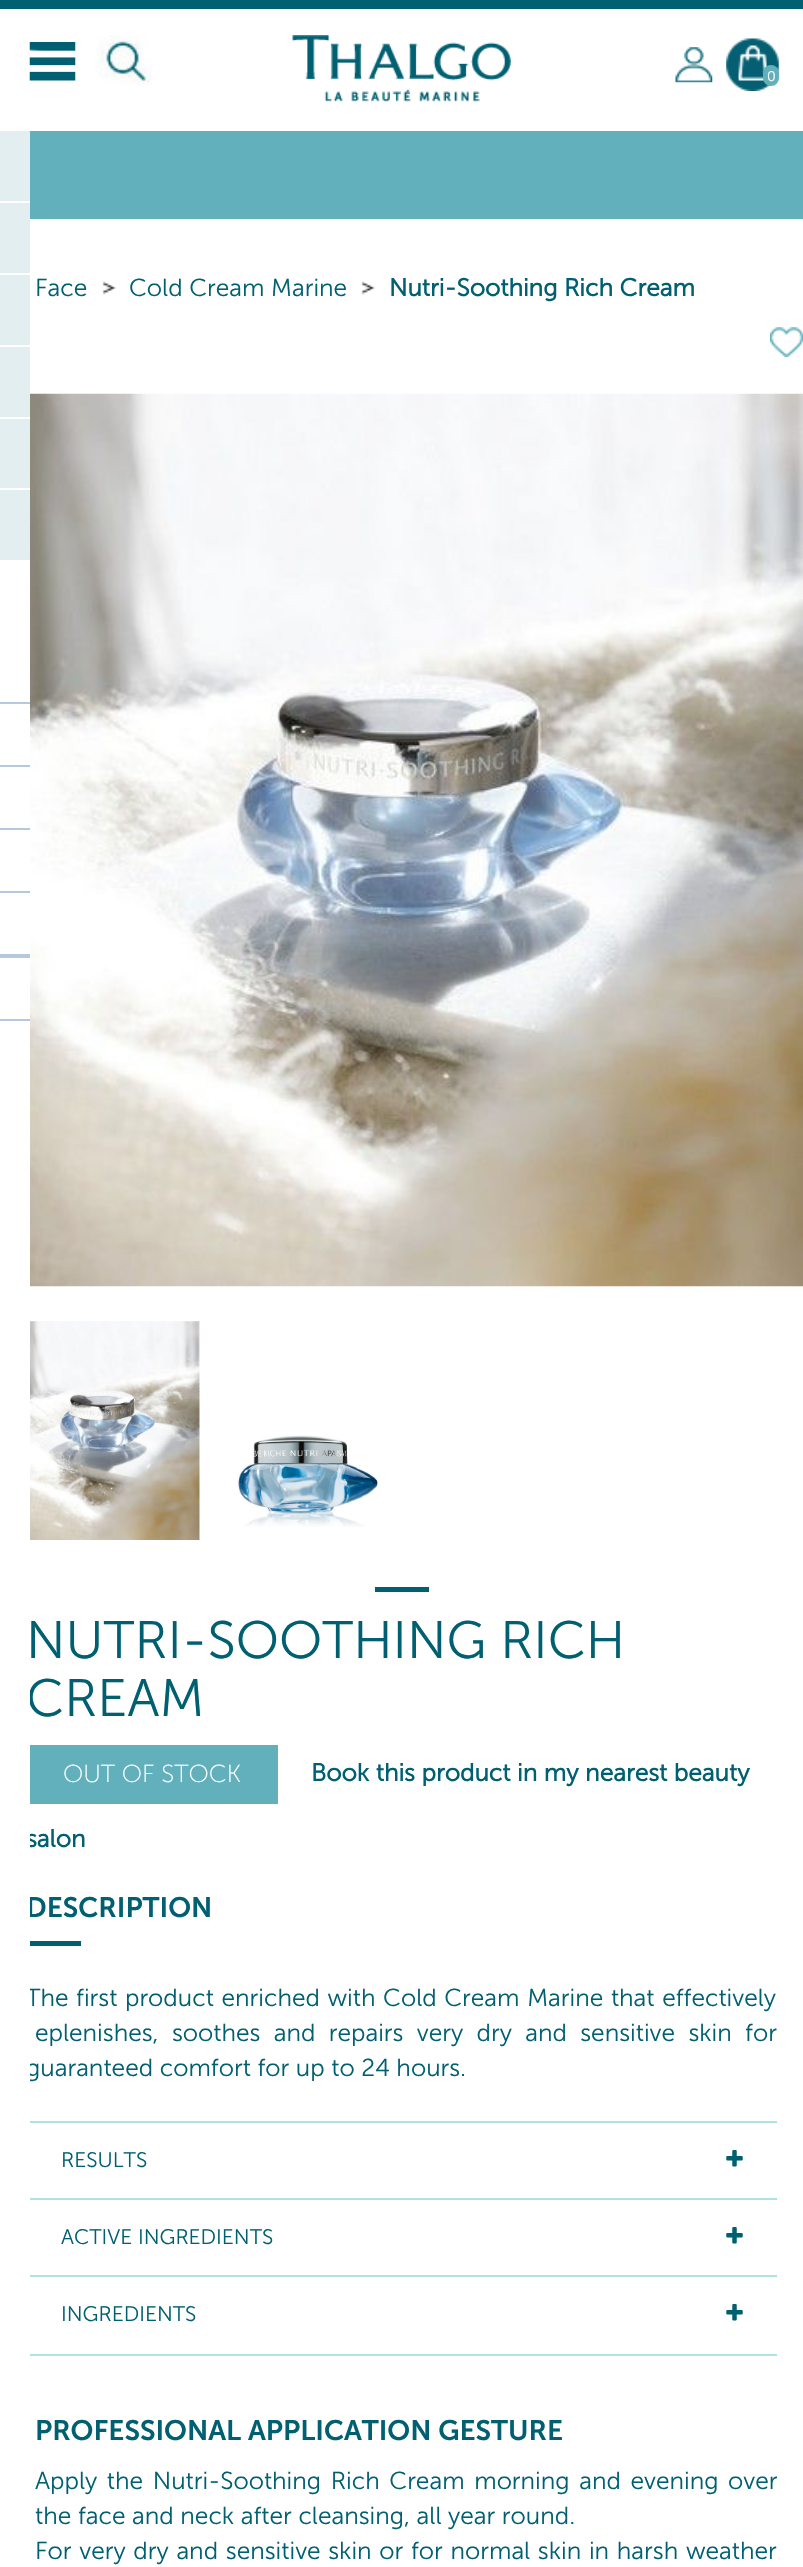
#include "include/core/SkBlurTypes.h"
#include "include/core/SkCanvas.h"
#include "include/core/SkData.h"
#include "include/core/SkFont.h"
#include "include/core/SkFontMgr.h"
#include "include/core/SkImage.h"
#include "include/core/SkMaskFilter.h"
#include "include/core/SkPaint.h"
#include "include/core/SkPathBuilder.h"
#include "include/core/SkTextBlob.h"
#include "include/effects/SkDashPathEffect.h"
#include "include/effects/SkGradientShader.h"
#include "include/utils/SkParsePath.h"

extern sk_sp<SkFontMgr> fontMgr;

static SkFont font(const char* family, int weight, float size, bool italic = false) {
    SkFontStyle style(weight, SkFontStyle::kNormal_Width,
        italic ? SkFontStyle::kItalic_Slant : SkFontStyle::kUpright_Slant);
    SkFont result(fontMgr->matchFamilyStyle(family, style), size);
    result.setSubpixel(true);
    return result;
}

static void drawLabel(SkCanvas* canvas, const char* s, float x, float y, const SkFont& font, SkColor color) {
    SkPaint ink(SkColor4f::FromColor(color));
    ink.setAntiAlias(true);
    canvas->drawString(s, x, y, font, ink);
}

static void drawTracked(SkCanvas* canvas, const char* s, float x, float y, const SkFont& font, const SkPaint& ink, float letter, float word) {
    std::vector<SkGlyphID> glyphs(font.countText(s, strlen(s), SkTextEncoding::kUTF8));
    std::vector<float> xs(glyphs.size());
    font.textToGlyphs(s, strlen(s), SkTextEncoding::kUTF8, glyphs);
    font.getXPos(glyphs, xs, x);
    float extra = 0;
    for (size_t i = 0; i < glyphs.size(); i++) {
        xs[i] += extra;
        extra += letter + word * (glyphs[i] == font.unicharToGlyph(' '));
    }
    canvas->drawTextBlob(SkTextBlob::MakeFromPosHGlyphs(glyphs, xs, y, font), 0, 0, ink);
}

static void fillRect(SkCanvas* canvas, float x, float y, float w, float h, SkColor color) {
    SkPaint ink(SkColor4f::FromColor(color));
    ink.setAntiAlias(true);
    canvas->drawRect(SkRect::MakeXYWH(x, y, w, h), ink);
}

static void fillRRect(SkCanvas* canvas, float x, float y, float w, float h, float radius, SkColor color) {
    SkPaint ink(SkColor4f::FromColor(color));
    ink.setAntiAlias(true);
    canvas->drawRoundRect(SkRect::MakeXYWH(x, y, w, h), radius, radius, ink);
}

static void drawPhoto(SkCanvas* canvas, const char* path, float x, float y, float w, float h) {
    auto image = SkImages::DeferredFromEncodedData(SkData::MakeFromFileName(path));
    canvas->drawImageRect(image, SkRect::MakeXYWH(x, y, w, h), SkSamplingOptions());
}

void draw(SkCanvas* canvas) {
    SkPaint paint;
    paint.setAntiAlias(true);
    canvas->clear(0xFFFFFFFF);
    fillRect(canvas, 0, 0, 803, 9, 0xFF006072);
    drawPhoto(canvas, "assets/img1.png", 29, 42, 47, 39);
    drawPhoto(canvas, "assets/img2.png", 96, 35, 56, 51);
    drawPhoto(canvas, "assets/img3.png", 292, 35, 219, 67);
    drawPhoto(canvas, "assets/img4.png", 675, 47, 38, 36);
    drawPhoto(canvas, "assets/img5.png", 726, 38, 53, 53);
    fillRRect(canvas, 763, 65, 16, 21, 8, 0xFF61B0BC);
    SkFont font1 = font("Museo Sans", 300, 14);
    drawLabel(canvas, "0", 767, 81, font1, 0xFFFFFFFF);
    SkFont font2 = font("Museo Sans", 300, 52.5f);
    drawLabel(canvas, "CREAM", 26, 1716, font2, 0xFF006072);
    SkFont font3 = font("Museo Sans", 700, 24.5f);
    drawLabel(canvas, "salon", 26, 1847, font3, 0xFF006072);
    SkFont font4 = font("Museo Sans", 600, 28);
    drawLabel(canvas, "DESCRIPTION", 26, 1917, font4, 0xFF006072);
    fillRect(canvas, 26, 1941, 55, 5, 0xFF006072);
    SkFont font5 = font("Museo Sans", 300, 24.5f);
    paint.setColor(0xFF006072);
    drawTracked(canvas, "The first product enriched with Cold Cream Marine that effectively", 26, 2006, font5, paint, 0, 1);
    drawLabel(canvas, "guaranteed comfort for up to 24 hours.", 26, 2076, font5, 0xFF006072);
    fillRect(canvas, 26, 2121, 751, 2, 0xFFAFE2E3);
    fillRect(canvas, 26, 2198, 751, 2, 0xFFAFE2E3);
    fillRect(canvas, 26, 2275, 751, 2, 0xFFAFE2E3);
    fillRect(canvas, 26, 2354, 751, 2, 0xFFAFE2E3);
    fillRect(canvas, 26, 1691, 4, 665, 0xFFFFFFFF);
    fillRect(canvas, 0, 131, 30, 429, 0xFFE3EEF0);
    fillRect(canvas, 0, 201, 30, 2, 0xFFFFFFFF);
    fillRect(canvas, 0, 273, 30, 2, 0xFFFFFFFF);
    fillRect(canvas, 0, 345, 30, 2, 0xFFFFFFFF);
    fillRect(canvas, 0, 417, 30, 2, 0xFFFFFFFF);
    fillRect(canvas, 0, 488, 30, 2, 0xFFFFFFFF);
    fillRect(canvas, 0, 702, 30, 2, 0xFFB6C8DD);
    fillRect(canvas, 0, 765, 30, 2, 0xFFB6C8DD);
    fillRect(canvas, 0, 828, 30, 2, 0xFFB6C8DD);
    fillRect(canvas, 0, 891, 30, 2, 0xFFB6C8DD);
    fillRect(canvas, 0, 954, 30, 4, 0xFFB6C8DD);
    fillRect(canvas, 0, 1019, 30, 2, 0xFFB6C8DD);
    fillRect(canvas, 30, 131, 773, 88, 0xFF61B0BC);
    drawLabel(canvas, "Face", 35, 296, font5, 0xFF006072);
    drawPhoto(canvas, "assets/img6.png", 102, 281, 14, 14);
    drawLabel(canvas, "Cold Cream Marine", 129, 296, font5, 0xFF006072);
    drawPhoto(canvas, "assets/img6.png", 361, 281, 14, 14);
    drawLabel(canvas, "Nutri-Soothing Rich Cream", 389, 296, font3, 0xFF006072);
    drawPhoto(canvas, "assets/img7.png", 770, 327, 33, 30);
    drawPhoto(canvas, "assets/img8.png", 30, 393, 773, 894);
    drawPhoto(canvas, "assets/img9.png", 30, 1321, 170, 219);
    drawPhoto(canvas, "assets/img10.png", 237, 1435, 141, 92);
    fillRect(canvas, 375, 1587, 54, 5, 0xFF006072);
    drawLabel(canvas, "NUTRI-SOOTHING RICH", 26, 1658, font2, 0xFF006072);
    fillRect(canvas, 30, 1745, 248, 59, 0xFF61B0BC);
    SkFont font6 = font("Museo Sans", 200, 24.5f);
    drawLabel(canvas, "OUT OF STOCK", 63, 1782, font6, 0xFFFFFFFF);
    drawLabel(canvas, "Book this product in my nearest beauty", 311, 1781, font3, 0xFF006072);
    drawTracked(canvas, "eplenishes, soothes and repairs very dry and sensitive skin for", 35, 2041, font5, paint, 0, 6.75f);
    SkFont font7 = font("Museo Sans", 300, 21);
    drawLabel(canvas, "RESULTS", 61, 2167, font7, 0xFF006072);
    drawPhoto(canvas, "assets/img11.png", 726, 2150, 17, 17);
    drawLabel(canvas, "ACTIVE INGREDIENTS", 61, 2244, font7, 0xFF006072);
    drawPhoto(canvas, "assets/img11.png", 726, 2227, 17, 17);
    drawLabel(canvas, "INGREDIENTS", 61, 2321, font7, 0xFF006072);
    drawPhoto(canvas, "assets/img11.png", 726, 2304, 17, 17);
    drawLabel(canvas, "PROFESSIONAL APPLICATION GESTURE", 35, 2440, font4, 0xFF006072);
    drawTracked(canvas, "Apply the Nutri-Soothing Rich Cream morning and evening over", 35, 2489, font5, paint, 0, 3);
    drawLabel(canvas, "the face and neck after cleansing, all year round.", 35, 2524, font5, 0xFF006072);
    drawTracked(canvas, "For very dry and sensitive skin or for normal skin in harsh weather", 35, 2559, font5, paint, 0, 1.1f);
}
